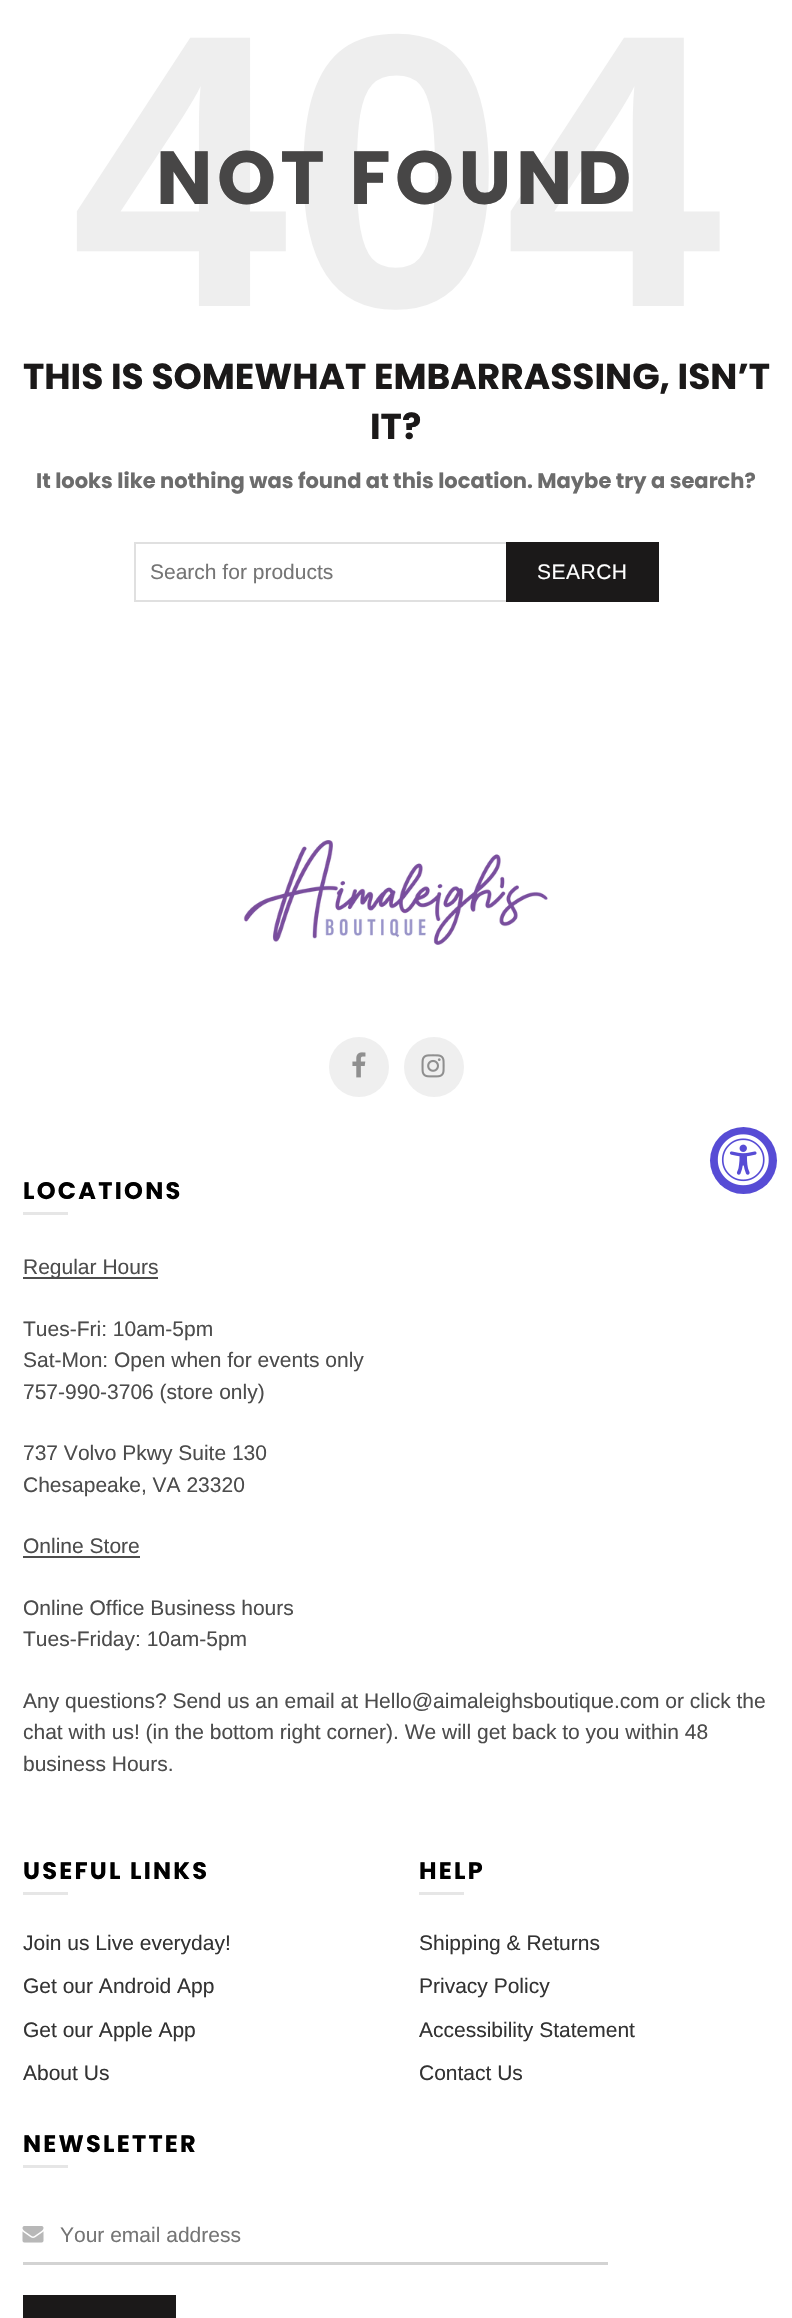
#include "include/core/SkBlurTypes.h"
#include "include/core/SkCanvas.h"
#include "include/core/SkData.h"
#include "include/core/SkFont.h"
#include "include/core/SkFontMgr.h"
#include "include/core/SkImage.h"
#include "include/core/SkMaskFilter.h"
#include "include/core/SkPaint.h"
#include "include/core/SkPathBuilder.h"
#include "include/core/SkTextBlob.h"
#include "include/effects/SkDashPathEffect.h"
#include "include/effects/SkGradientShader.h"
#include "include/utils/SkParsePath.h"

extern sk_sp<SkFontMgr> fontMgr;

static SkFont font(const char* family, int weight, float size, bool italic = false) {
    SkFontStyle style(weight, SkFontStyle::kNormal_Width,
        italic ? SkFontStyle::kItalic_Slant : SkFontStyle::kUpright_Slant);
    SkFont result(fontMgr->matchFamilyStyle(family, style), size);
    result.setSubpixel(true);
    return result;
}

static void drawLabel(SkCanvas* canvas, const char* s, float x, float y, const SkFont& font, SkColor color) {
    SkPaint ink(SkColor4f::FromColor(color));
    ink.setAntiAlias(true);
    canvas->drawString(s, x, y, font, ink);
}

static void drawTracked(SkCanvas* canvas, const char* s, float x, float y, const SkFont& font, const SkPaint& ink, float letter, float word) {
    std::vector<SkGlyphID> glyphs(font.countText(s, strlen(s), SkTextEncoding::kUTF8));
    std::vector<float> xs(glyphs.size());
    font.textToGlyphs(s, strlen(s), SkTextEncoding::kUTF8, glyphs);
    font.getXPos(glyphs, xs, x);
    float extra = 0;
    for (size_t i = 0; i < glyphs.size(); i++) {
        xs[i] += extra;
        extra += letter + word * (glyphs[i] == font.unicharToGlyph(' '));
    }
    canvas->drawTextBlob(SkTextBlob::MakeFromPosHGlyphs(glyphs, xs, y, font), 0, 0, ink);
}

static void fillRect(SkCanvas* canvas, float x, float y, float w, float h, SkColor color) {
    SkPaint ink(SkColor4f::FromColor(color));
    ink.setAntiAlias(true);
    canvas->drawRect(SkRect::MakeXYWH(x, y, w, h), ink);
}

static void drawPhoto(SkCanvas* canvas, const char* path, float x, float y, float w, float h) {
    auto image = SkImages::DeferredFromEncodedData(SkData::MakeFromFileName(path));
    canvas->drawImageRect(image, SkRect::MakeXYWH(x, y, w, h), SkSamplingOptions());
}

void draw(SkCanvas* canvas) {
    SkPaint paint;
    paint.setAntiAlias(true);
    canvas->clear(0xFFFFFFFF);
    SkFont font1 = font("Liberation Sans", 700, 390);
    drawLabel(canvas, "404", 71, 306, font1, 0xFFEEEEEE);
    SkFont font2 = font("Poppins", 700, 75);
    paint.setColor(0xFF474646);
    drawTracked(canvas, "NOT FOUND", 156, 204, font2, paint, 4.5f, 0);
    SkFont font3 = font("Poppins", 700, 36);
    drawLabel(canvas, "THIS IS SOMEWHAT EMBARRASSING, ISN’T", 23, 389, font3, 0xFF1B1919);
    drawLabel(canvas, "IT?", 370, 439, font3, 0xFF1B1919);
    SkFont font4 = font("Poppins", 700, 21);
    drawLabel(canvas, "It looks like nothing was found at this location. Maybe try a search?", 36, 488, font4, 0xFF6C6C6C);
    paint.setStroke(true);
    paint.setStrokeWidth(2);
    paint.setColor(0xFFE0E0E0);
    canvas->drawRect(SkRect::MakeXYWH(135, 543, 523, 58), paint);
    SkFont font5 = font("Liberation Sans", 400, 21);
    drawLabel(canvas, "Search for products", 150, 579, font5, 0xFF757575);
    fillRect(canvas, 506, 542, 153, 60, 0xFF1B1919);
    paint.setStroke(false);
    paint.setColor(0xFFFFFFFF);
    drawTracked(canvas, "SEARCH", 537, 579, font5, paint, 0.5f, 0);
    drawPhoto(canvas, "assets/img1.png", 243, 840, 305, 105);
    paint.setColor(0xFFEFEFEF);
    canvas->drawCircle(359, 1067, 30, paint);
    drawPhoto(canvas, "assets/img2.png", 352, 1052, 14, 26);
    canvas->drawCircle(434, 1067, 30, paint);
    drawPhoto(canvas, "assets/img3.png", 421, 1054, 24, 24);
    SkFont font6 = font("Poppins", 700, 24);
    paint.setColor(0xFF000000);
    drawTracked(canvas, "LOCATIONS", 23, 1199, font6, paint, 2.25f, 0);
    fillRect(canvas, 23, 1212, 45, 3, 0xFFE6E6E6);
    fillRect(canvas, 23, 1277, 135, 2, 0xFF4D4D4D);
    drawLabel(canvas, "Regular Hours", 23, 1274, font5, 0xFF4C4C4C);
    drawLabel(canvas, "Tues-Fri: 10am-5pm", 23, 1336, font5, 0xFF4C4C4C);
    drawLabel(canvas, "Sat-Mon: Open when for events only", 23, 1367, font5, 0xFF4C4C4C);
    drawLabel(canvas, "757-990-3706 (store only)", 23, 1399, font5, 0xFF4C4C4C);
    drawLabel(canvas, "737 Volvo Pkwy Suite 130", 23, 1460, font5, 0xFF4C4C4C);
    drawLabel(canvas, "Chesapeake, VA 23320", 23, 1492, font5, 0xFF4C4C4C);
    drawLabel(canvas, "Online Store", 23, 1553, font5, 0xFF4C4C4C);
    fillRect(canvas, 23, 1556, 117, 2, 0xFF4D4D4D);
    drawLabel(canvas, "Online Office Business hours", 23, 1615, font5, 0xFF4C4C4C);
    drawLabel(canvas, "Tues-Friday: 10am-5pm", 23, 1646, font5, 0xFF4C4C4C);
    drawLabel(canvas, "Any questions? Send us an email at Hello@aimaleighsboutique.com or click the", 23, 1708, font5, 0xFF4C4C4C);
    drawLabel(canvas, "chat with us! (in the bottom right corner). We will get back to you within 48", 23, 1739, font5, 0xFF4C4C4C);
    drawLabel(canvas, "business Hours.", 23, 1771, font5, 0xFF4C4C4C);
    drawTracked(canvas, "USEFUL LINKS", 23, 1879, font6, paint, 2.25f, 0);
    fillRect(canvas, 23, 1892, 45, 3, 0xFFE6E6E6);
    drawLabel(canvas, "Join us Live everyday!", 23, 1950, font5, 0xFF333333);
    drawLabel(canvas, "Get our Android App", 23, 1993, font5, 0xFF333333);
    drawLabel(canvas, "Get our Apple App", 23, 2037, font5, 0xFF333333);
    drawLabel(canvas, "About Us", 23, 2080, font5, 0xFF333333);
    drawTracked(canvas, "HELP", 419, 1879, font6, paint, 2.25f, 0);
    fillRect(canvas, 419, 1892, 45, 3, 0xFFE6E6E6);
    drawLabel(canvas, "Shipping & Returns", 419, 1950, font5, 0xFF333333);
    drawLabel(canvas, "Privacy Policy", 419, 1993, font5, 0xFF333333);
    drawLabel(canvas, "Accessibility Statement", 419, 2037, font5, 0xFF333333);
    drawLabel(canvas, "Contact Us", 419, 2080, font5, 0xFF333333);
    drawTracked(canvas, "NEWSLETTER", 23, 2152, font6, paint, 2.25f, 0);
    fillRect(canvas, 23, 2165, 45, 3, 0xFFE6E6E6);
    drawPhoto(canvas, "assets/img4.png", 22, 2226, 22, 17);
    fillRect(canvas, 23, 2262, 585, 3, 0xFFD3D3D3);
    drawLabel(canvas, "Your email address", 60, 2242, font5, 0xFF757575);
    fillRect(canvas, 23, 2295, 153, 23, 0xFF1B1919);
    paint.setColor(0xFF574CD5);
    canvas->drawCircle(743.5f, 1160.5f, 33.5f, paint);
    drawPhoto(canvas, "assets/img5.png", 717, 1134, 52, 52);
}
